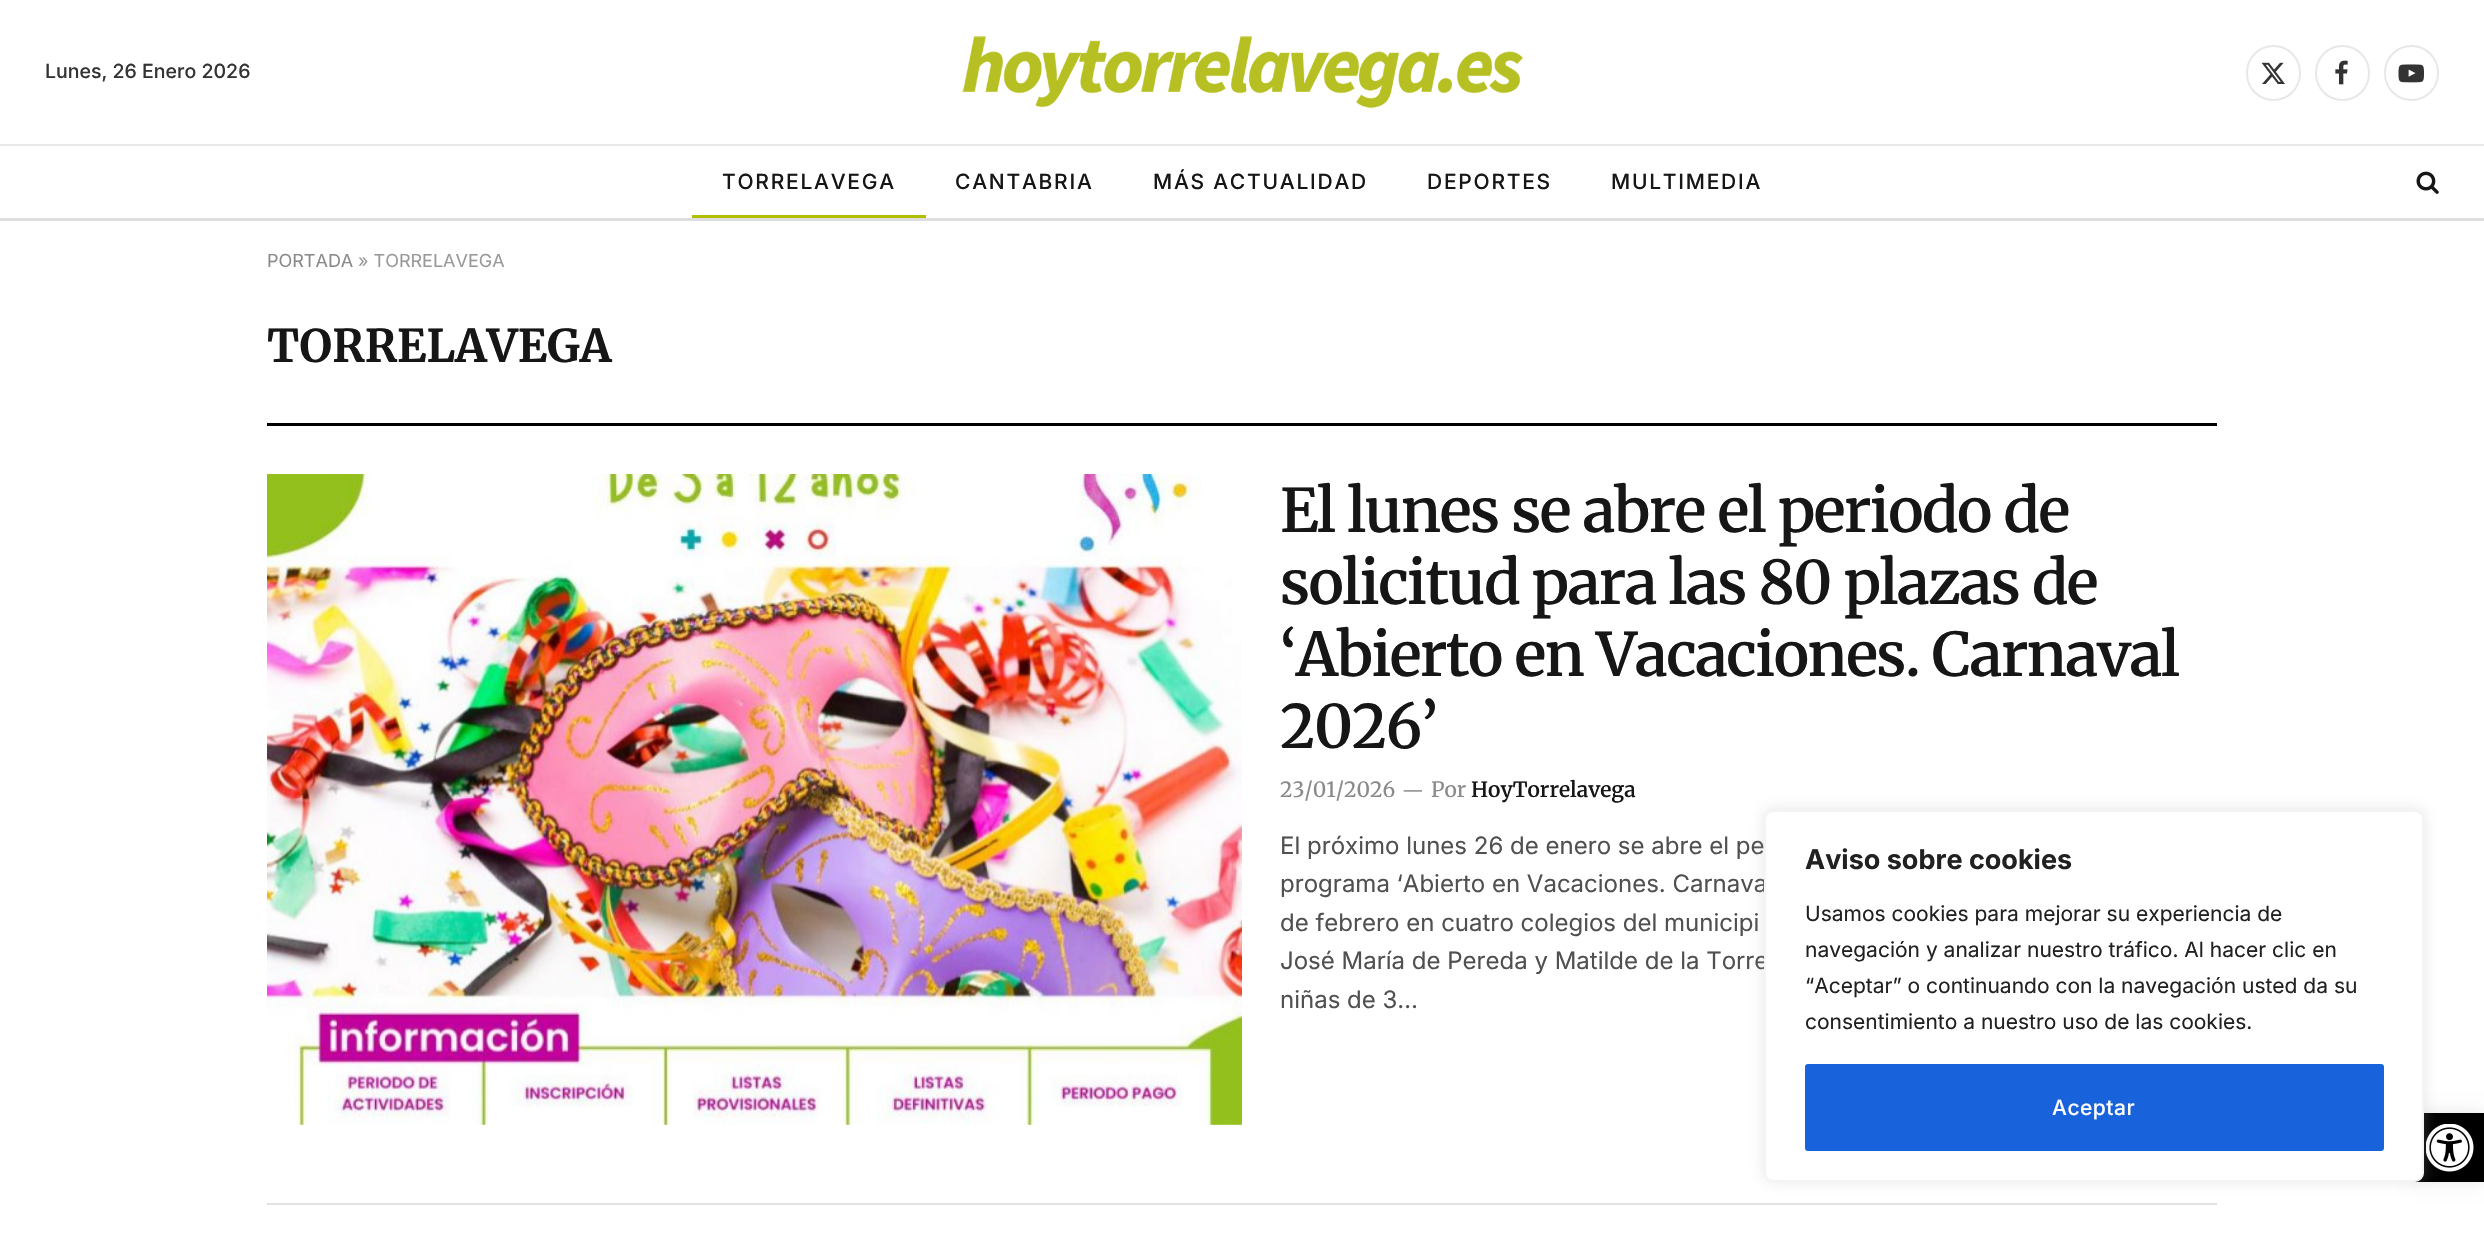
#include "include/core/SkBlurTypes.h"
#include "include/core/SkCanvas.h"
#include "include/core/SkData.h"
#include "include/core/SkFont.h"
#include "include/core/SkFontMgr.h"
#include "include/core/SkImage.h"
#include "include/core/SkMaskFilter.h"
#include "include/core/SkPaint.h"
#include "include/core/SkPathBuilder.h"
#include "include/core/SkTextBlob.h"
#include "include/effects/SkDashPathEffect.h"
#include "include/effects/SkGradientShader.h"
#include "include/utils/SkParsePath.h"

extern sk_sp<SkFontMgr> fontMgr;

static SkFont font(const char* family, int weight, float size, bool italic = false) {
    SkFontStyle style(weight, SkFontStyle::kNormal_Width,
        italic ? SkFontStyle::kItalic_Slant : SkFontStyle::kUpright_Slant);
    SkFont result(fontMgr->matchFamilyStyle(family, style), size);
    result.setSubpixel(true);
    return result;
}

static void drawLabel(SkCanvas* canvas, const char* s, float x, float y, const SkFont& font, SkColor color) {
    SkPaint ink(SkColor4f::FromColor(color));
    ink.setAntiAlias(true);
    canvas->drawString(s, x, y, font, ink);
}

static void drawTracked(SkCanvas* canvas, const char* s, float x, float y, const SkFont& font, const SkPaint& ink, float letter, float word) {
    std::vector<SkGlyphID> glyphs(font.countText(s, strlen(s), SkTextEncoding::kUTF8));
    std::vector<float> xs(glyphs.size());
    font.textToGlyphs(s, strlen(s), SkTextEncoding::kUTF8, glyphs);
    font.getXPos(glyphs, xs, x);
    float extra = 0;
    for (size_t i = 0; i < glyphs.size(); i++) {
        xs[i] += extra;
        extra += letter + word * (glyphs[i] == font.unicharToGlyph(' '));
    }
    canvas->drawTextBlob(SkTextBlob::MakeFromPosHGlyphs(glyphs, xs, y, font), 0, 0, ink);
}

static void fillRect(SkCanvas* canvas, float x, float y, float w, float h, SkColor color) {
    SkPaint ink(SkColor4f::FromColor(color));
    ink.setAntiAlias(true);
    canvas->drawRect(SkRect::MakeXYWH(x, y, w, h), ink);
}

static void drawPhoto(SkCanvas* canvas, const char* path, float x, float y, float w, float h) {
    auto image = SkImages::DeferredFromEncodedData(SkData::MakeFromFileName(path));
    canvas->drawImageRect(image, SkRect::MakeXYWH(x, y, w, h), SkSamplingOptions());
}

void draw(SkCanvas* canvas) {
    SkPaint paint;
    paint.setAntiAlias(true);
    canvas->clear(0xFFFFFFFF);
    SkFont font1 = font("Inter", 500, 19.5f);
    drawLabel(canvas, "Lunes, 26 Enero 2026", 45, 78, font1, 0xFF333333);
    drawPhoto(canvas, "assets/img1.png", 962, 36, 562, 73);
    paint.setStroke(true);
    paint.setStrokeWidth(2);
    paint.setColor(0xFFE8E8E8);
    canvas->drawRoundRect(SkRect::MakeXYWH(2247, 46, 53, 54), 26.5f, 26.5f, paint);
    drawPhoto(canvas, "assets/img2.png", 2261, 62, 24, 22);
    canvas->drawRoundRect(SkRect::MakeXYWH(2316, 46, 53, 54), 26.5f, 26.5f, paint);
    drawPhoto(canvas, "assets/img3.png", 2335, 60, 13, 25);
    canvas->drawRoundRect(SkRect::MakeXYWH(2385, 46, 53, 54), 26.5f, 26.5f, paint);
    drawPhoto(canvas, "assets/img4.png", 2398, 64, 26, 19);
    fillRect(canvas, 0, 144, 2484, 2, 0xFFE8E8E8);
    fillRect(canvas, 0, 218, 2484, 3, 0xFFDEDEDE);
    SkFont font2 = font("Inter", 500, 21);
    paint.setStroke(false);
    paint.setColor(0xFF161616);
    drawTracked(canvas, "TORRELAVEGA", 722, 189, font2, paint, 1.75f, 0);
    fillRect(canvas, 692, 215, 234, 3, 0xFFB2BF00);
    drawTracked(canvas, "CANTABRIA", 955, 189, font2, paint, 1.75f, 0);
    drawTracked(canvas, "MÁS ACTUALIDAD", 1153, 189, font2, paint, 1.75f, 0);
    drawTracked(canvas, "DEPORTES", 1427, 189, font2, paint, 1.75f, 0);
    drawTracked(canvas, "MULTIMEDIA", 1611, 189, font2, paint, 1.75f, 0);
    drawPhoto(canvas, "assets/img5.png", 2416, 171, 23, 23);
    SkFont font3 = font("Inter", 400, 18);
    drawLabel(canvas, "PORTADA", 267, 267, font3, 0xFF8A8A8A);
    drawLabel(canvas, "» TORRELAVEGA", 358, 267, font3, 0xFF999999);
    SkFont font4 = font("Merriweather", 700, 45);
    drawLabel(canvas, "TORRELAVEGA", 267, 362, font4, 0xFF161616);
    fillRect(canvas, 267, 423, 1950, 3, 0xFF000000);
    drawPhoto(canvas, "assets/img6.png", 267, 474, 975, 651);
    SkFont font5 = font("Merriweather", 600, 60);
    drawTracked(canvas, "El lunes se abre el periodo de", 1280, 532, font5, paint, -1.5f, 0);
    drawTracked(canvas, "solicitud para las 80 plazas de", 1280, 604, font5, paint, -1.5f, 0);
    drawTracked(canvas, "‘Abierto en Vacaciones. Carnaval", 1280, 676, font5, paint, -1.5f, 0);
    drawTracked(canvas, "2026’", 1280, 748, font5, paint, -1.5f, 0);
    SkFont font6 = font("Merriweather", 400, 21);
    drawLabel(canvas, "23/01/2026", 1280, 797, font6, 0xFF8A8A8A);
    SkFont font7 = font("Merriweather", 400, 19);
    drawLabel(canvas, "—", 1402, 797, font7, 0xFF8A8A8A);
    drawLabel(canvas, "Por", 1431, 797, font6, 0xFF8A8A8A);
    SkFont font8 = font("Merriweather", 600, 21);
    drawLabel(canvas, "HoyTorrelavega", 1471, 797, font8, 0xFF161616);
    SkFont font9 = font("Inter", 400, 24);
    drawLabel(canvas, "El próximo lunes 26 de enero se abre el pe", 1280, 854, font9, 0xFF505050);
    drawLabel(canvas, "programa ‘Abierto en Vacaciones. Carnava", 1280, 892, font9, 0xFF505050);
    drawLabel(canvas, "de febrero en cuatro colegios del municipi", 1280, 931, font9, 0xFF505050);
    drawLabel(canvas, "José María de Pereda y Matilde de la Torre", 1280, 969, font9, 0xFF505050);
    drawLabel(canvas, "niñas de 3…", 1280, 1008, font9, 0xFF505050);
    fillRect(canvas, 267, 1203, 1950, 2, 0xFFE2E2E2);
    paint.setColor(0x1A000000);
    paint.setMaskFilter(SkMaskFilter::MakeBlur(kNormal_SkBlurStyle, 7.5f));
    canvas->drawRect(SkRect::MakeXYWH(2415, 1113, 69, 69), paint);
    paint.setMaskFilter(nullptr);
    fillRect(canvas, 2415, 1113, 69, 69, 0xFF000000);
    drawPhoto(canvas, "assets/img7.png", 2426, 1124, 48, 48);
    paint.setColor(0x4DACABAB);
    paint.setMaskFilter(SkMaskFilter::MakeBlur(kNormal_SkBlurStyle, 7.5f));
    canvas->drawRoundRect(SkRect::MakeXYWH(1764, 809, 660, 372), 9, 9, paint);
    paint.setMaskFilter(nullptr);
    paint.setColor(0xFFFFFFFF);
    canvas->drawRoundRect(SkRect::MakeXYWH(1765, 811, 658, 370), 8, 8, paint);
    paint.setStroke(true);
    paint.setColor(0xFFF4F4F4);
    canvas->drawRoundRect(SkRect::MakeXYWH(1765, 811, 658, 370), 8, 8, paint);
    SkFont font10 = font("Inter", 700, 27);
    drawLabel(canvas, "Aviso sobre cookies", 1805, 869, font10, 0xFF212121);
    SkFont font11 = font("Inter", 400, 21);
    drawLabel(canvas, "Usamos cookies para mejorar su experiencia de", 1805, 921, font11, 0xFF212121);
    drawLabel(canvas, "navegación y analizar nuestro tráfico. Al hacer clic en", 1805, 957, font11, 0xFF212121);
    drawLabel(canvas, "“Aceptar” o continuando con la navegación usted da su", 1805, 993, font11, 0xFF212121);
    drawLabel(canvas, "consentimiento a nuestro uso de las cookies.", 1805, 1029, font11, 0xFF212121);
    paint.setStroke(false);
    paint.setColor(0xFF1863DC);
    canvas->drawRoundRect(SkRect::MakeXYWH(1806.5f, 1065.5f, 576, 84), 1.5f, 1.5f, paint);
    paint.setStroke(true);
    paint.setStrokeWidth(3);
    canvas->drawRoundRect(SkRect::MakeXYWH(1806.5f, 1065.5f, 576, 84), 1.5f, 1.5f, paint);
    paint.setStroke(false);
    paint.setColor(0xFFFFFFFF);
    drawTracked(canvas, "Aceptar", 2052, 1115, font2, paint, 0.5f, 0);
}
